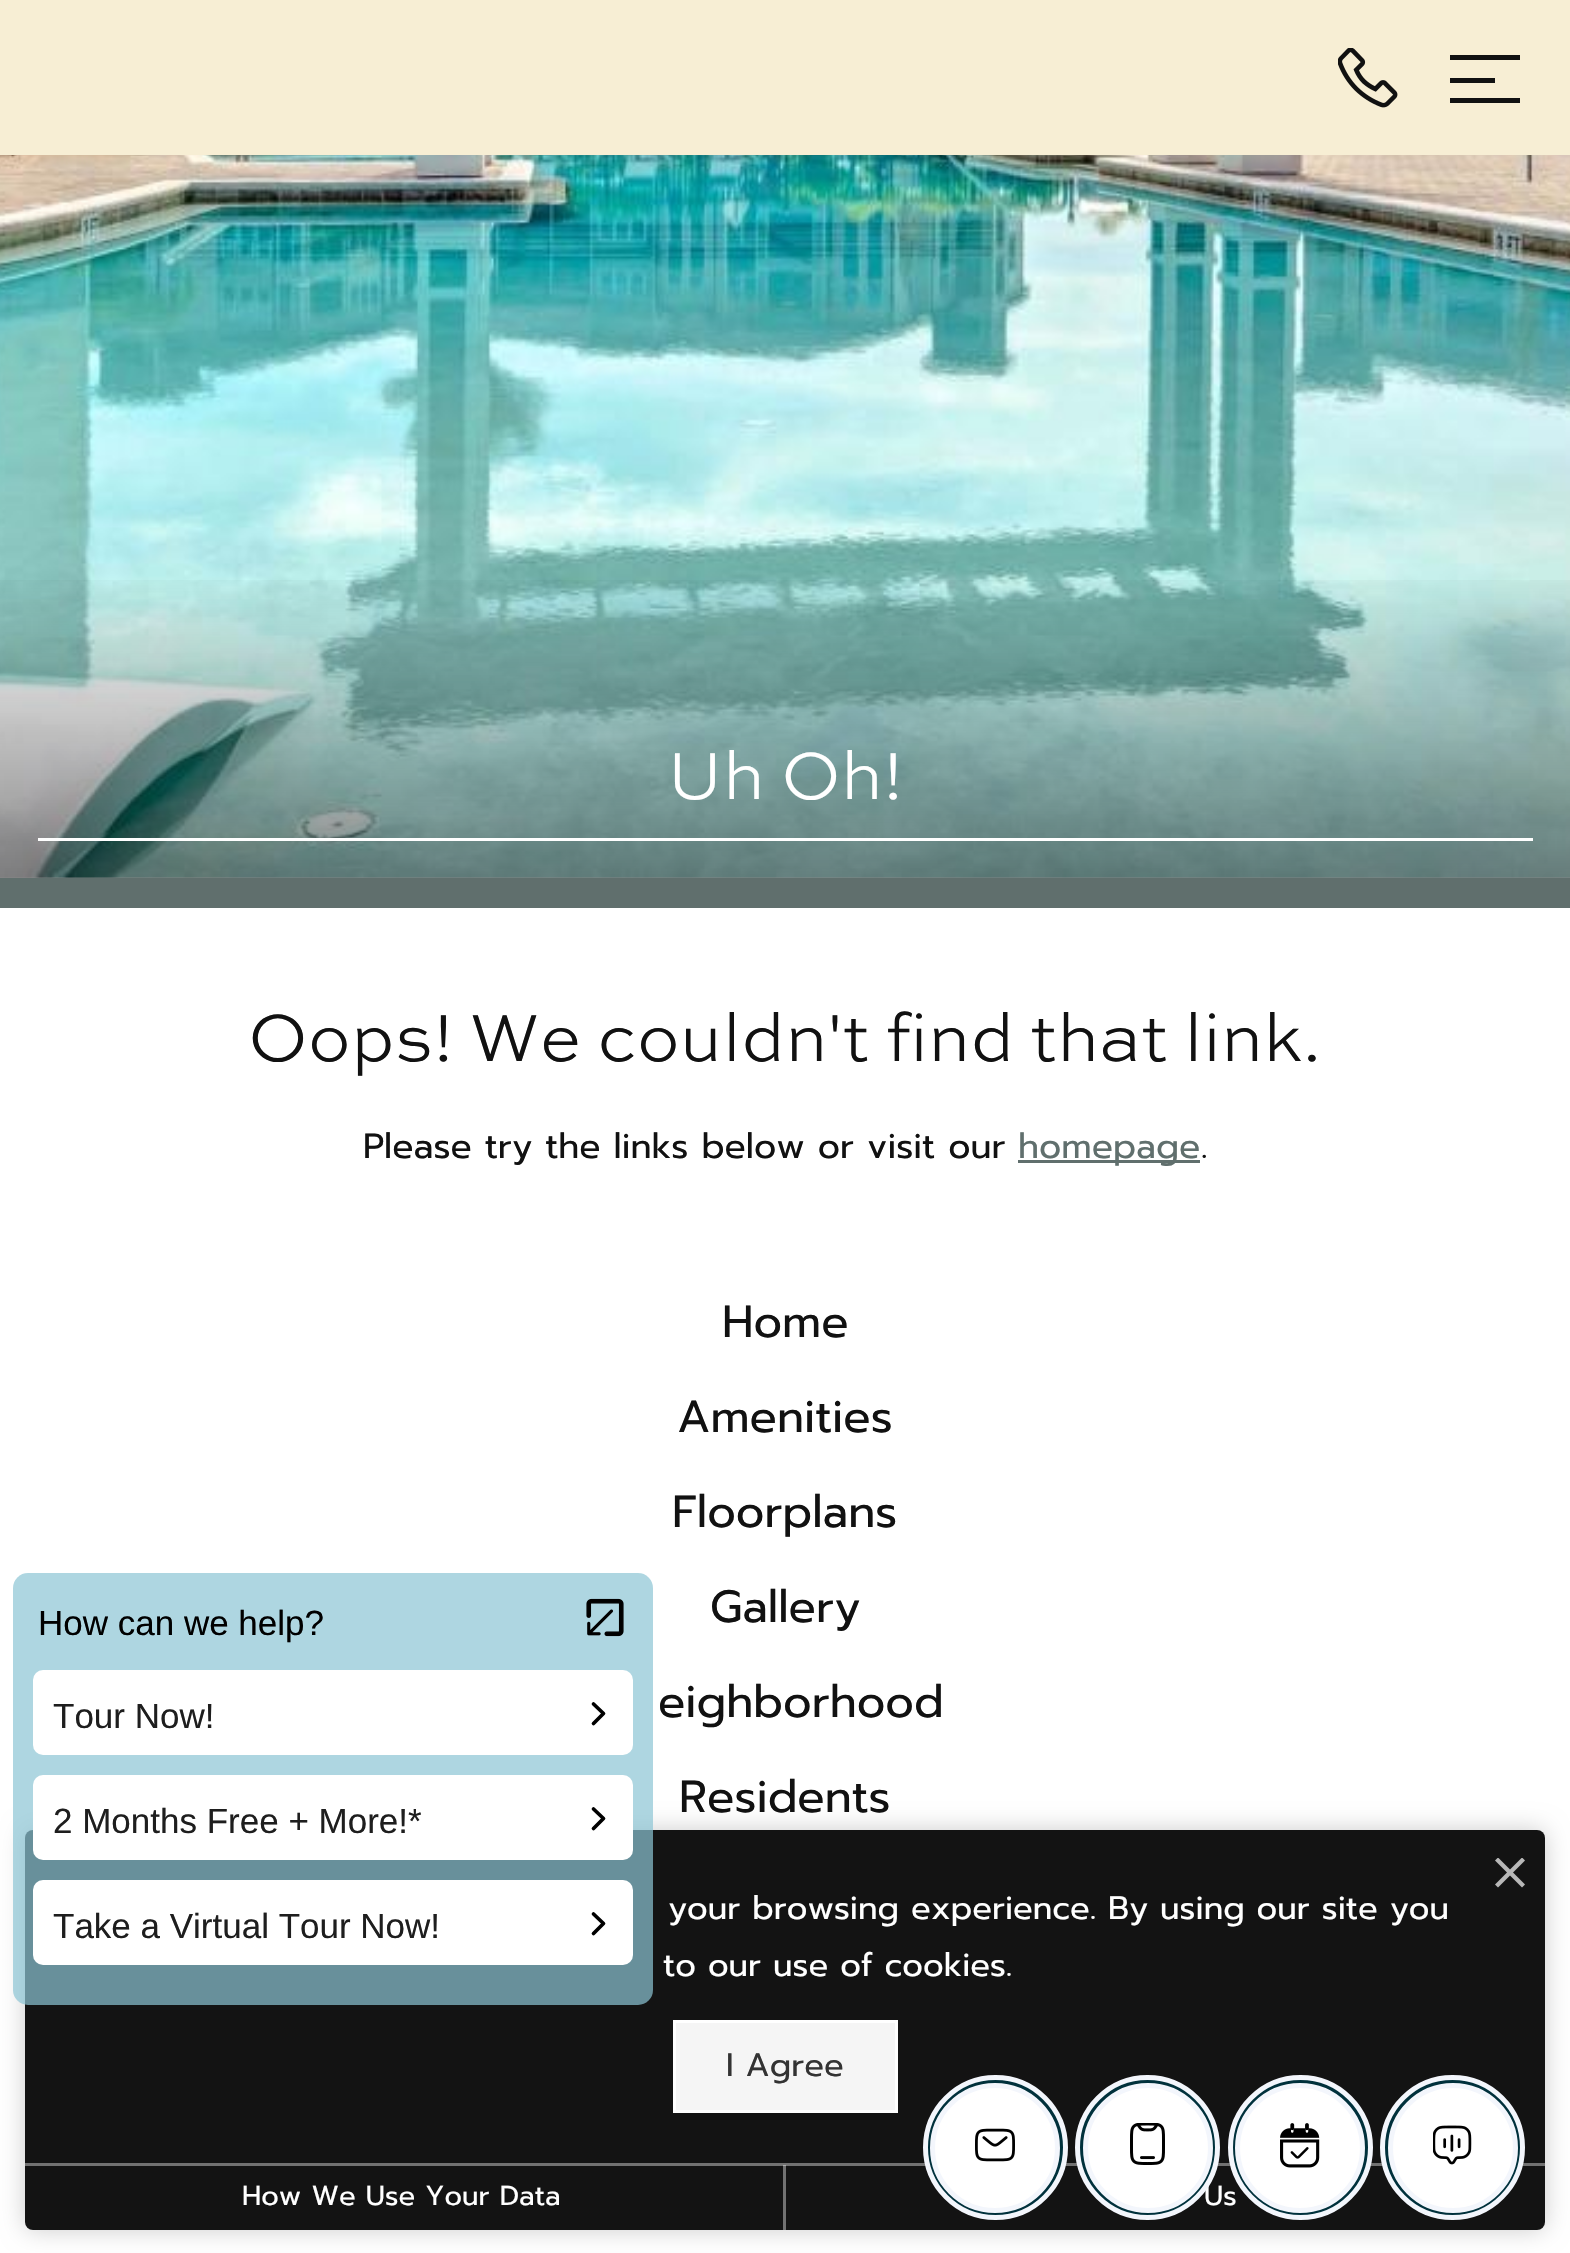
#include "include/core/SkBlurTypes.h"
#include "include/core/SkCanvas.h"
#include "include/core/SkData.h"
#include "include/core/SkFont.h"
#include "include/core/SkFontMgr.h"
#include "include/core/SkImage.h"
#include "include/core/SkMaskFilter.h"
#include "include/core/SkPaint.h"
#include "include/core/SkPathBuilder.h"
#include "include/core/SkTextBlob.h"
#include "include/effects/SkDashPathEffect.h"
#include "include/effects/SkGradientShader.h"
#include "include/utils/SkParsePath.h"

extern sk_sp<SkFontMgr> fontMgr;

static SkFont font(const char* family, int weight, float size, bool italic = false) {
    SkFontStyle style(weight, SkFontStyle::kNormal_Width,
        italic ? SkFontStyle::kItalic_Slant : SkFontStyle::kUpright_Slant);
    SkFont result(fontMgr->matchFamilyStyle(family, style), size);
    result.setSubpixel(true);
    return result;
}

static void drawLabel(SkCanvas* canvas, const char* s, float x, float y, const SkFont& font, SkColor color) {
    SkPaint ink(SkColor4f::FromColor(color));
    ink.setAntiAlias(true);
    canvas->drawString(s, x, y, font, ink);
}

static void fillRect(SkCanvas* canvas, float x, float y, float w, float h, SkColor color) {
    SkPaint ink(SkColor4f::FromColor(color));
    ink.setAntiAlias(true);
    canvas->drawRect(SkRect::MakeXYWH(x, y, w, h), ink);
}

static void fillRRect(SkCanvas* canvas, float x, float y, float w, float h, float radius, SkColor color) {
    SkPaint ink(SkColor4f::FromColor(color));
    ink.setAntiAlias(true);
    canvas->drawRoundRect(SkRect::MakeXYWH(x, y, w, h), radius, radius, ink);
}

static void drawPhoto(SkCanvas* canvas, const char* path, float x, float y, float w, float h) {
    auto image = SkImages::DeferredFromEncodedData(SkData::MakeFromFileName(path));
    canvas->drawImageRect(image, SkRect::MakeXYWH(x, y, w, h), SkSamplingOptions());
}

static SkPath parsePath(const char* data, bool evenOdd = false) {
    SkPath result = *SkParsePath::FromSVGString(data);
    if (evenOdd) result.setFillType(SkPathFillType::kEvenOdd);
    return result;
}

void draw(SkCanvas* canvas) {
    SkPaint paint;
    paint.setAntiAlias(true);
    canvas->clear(0xFFFFFFFF);
    paint.setColor(0x33000000);
    paint.setMaskFilter(SkMaskFilter::MakeBlur(kNormal_SkBlurStyle, 12.5f));
    canvas->drawRoundRect(SkRect::MakeXYWH(25, 1830, 1520, 400), 8, 8, paint);
    paint.setMaskFilter(nullptr);
    fillRRect(canvas, 25, 1830, 1520, 400, 8, 0xFF131313);
    fillRRect(canvas, 13, 1573, 640, 432, 15, 0xB38CC4D4);
    SkFont font1 = font("Liberation Sans", 400, 35);
    drawLabel(canvas, "How can we help?", 38, 1635, font1, 0xFF000000);
    drawPhoto(canvas, "assets/img1.png", 586, 1598, 38, 39);
    fillRRect(canvas, 33, 1670, 600, 85, 10, 0xFFFFFFFF);
    drawLabel(canvas, "Tour Now!", 53, 1728, font1, 0xFF1E1E1E);
    paint.setStroke(true);
    paint.setStrokeWidth(3.7f);
    paint.setStrokeCap(SkPaint::kRound_Cap);
    paint.setStrokeJoin(SkPaint::kRound_Join);
    paint.setColor(0xFF000000);
    canvas->drawPath(parsePath("M593.5 1704L603.5 1713.5L593.5 1723.5"), paint);
    fillRRect(canvas, 33, 1775, 600, 85, 10, 0xFFFFFFFF);
    drawLabel(canvas, "2 Months Free + More!*", 53, 1833, font1, 0xFF1E1E1E);
    canvas->drawPath(parsePath("M593.5 1809L603.5 1818.5L593.5 1828.5"), paint);
    fillRRect(canvas, 33, 1880, 600, 85, 10, 0xFFFFFFFF);
    drawLabel(canvas, "Take a Virtual Tour Now!", 53, 1938, font1, 0xFF1E1E1E);
    canvas->drawPath(parsePath("M593.5 1914L603.5 1923.5L593.5 1933.5"), paint);
    fillRect(canvas, 0, 0, 1570, 155, 0xFFF7EED4);
    drawPhoto(canvas, "assets/img2.png", 1338, 48, 60, 60);
    fillRect(canvas, 1450, 55, 70, 5, 0xFF111111);
    fillRect(canvas, 1450, 78, 45, 5, 0xFF111111);
    fillRect(canvas, 1450, 98, 70, 5, 0xFF111111);
    drawPhoto(canvas, "assets/img3.png", 0, 877, 1570, 1);
    drawPhoto(canvas, "assets/img4.png", 0, 155, 1570, 723);
    paint.setStroke(false);
    {
        const SkColor colors[] = {0x00000000, 0x73000000};
        const float stops[] = {0, 1};
        const SkPoint ends[] = {{785, 565}, {785, 878}};
        paint.setShader(SkGradientShader::MakeLinear(ends, colors, stops, 2, SkTileMode::kClamp));
        paint.setAlpha(255);
    }
    canvas->drawRect(SkRect::MakeXYWH(0, 580, 1570, 298), paint);
    fillRect(canvas, 38, 838, 1495, 3, 0xFFFFFFFF);
    SkFont font2 = font("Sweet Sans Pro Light", 300, 70);
    drawLabel(canvas, "Uh Oh!", 667, 799, font2, 0xFFFFFFFF);
    fillRect(canvas, 0, 878, 1570, 30, 0xFF606F6D);
    drawLabel(canvas, "Oops! We couldn't find that link.", 248, 1061, font2, 0xFF111111);
    SkFont font3 = font("Prompt", 400, 35);
    drawLabel(canvas, "Please try the links below or visit our", 363, 1158, font3, 0xFF111111);
    fillRect(canvas, 1018, 1160, 182, 3, 0xFF606F6D);
    drawLabel(canvas, "homepage", 1018, 1158, font3, 0xFF606F6D);
    drawLabel(canvas, ".", 1201, 1158, font3, 0xFF111111);
    SkFont font4 = font("Prompt", 400, 45);
    drawLabel(canvas, "Home", 722, 1337, font4, 0xFF111111);
    drawLabel(canvas, "Amenities", 677, 1432, font4, 0xFF111111);
    drawLabel(canvas, "Floorplans", 672, 1527, font4, 0xFF111111);
    drawLabel(canvas, "Gallery", 710, 1622, font4, 0xFF111111);
    drawLabel(canvas, "eighborhood", 658, 1717, font4, 0xFF111111);
    drawLabel(canvas, "Residents", 679, 1812, font4, 0xFF111111);
    drawPhoto(canvas, "assets/img5.png", 1495, 1858, 30, 30);
    SkFont font5 = font("Prompt", 400, 32.5f);
    drawLabel(canvas, "your browsing experience. By using our site you", 668, 1919, font5, 0xFFFFFFFF);
    drawLabel(canvas, "to our use of cookies.", 663, 1976, font5, 0xFFFFFFFF);
    paint.setShader(nullptr);
    paint.setColor(0xFFF5F5F5);
    canvas->drawRect(SkRect::MakeXYWH(674.5f, 2021.5f, 222, 90), paint);
    paint.setStroke(true);
    paint.setStrokeWidth(3);
    paint.setStrokeCap(SkPaint::kButt_Cap);
    paint.setStrokeJoin(SkPaint::kMiter_Join);
    paint.setColor(0xFFFFFFFF);
    canvas->drawRect(SkRect::MakeXYWH(674.5f, 2021.5f, 222, 90), paint);
    drawLabel(canvas, "I Agree", 726, 2076, font5, 0xFF333333);
    fillRect(canvas, 25, 2163, 1520, 3, 0xFF717171);
    fillRect(canvas, 783, 2165, 3, 65, 0x66FFFFFF);
    SkFont font6 = font("Prompt", 400, 27.5f);
    drawLabel(canvas, "How We Use Your Data", 242, 2205, font6, 0xFFFFFFFF);
    drawLabel(canvas, "Us", 1204, 2205, font6, 0xFFFFFFFF);
    paint.setStroke(false);
    paint.setColor(0xFF00313C);
    canvas->drawCircle(995.5f, 2147.5f, 70, paint);
    paint.setStroke(true);
    paint.setStrokeWidth(5);
    paint.setColor(0xFFF3F6FC);
    canvas->drawCircle(995.5f, 2147.5f, 70, paint);
    paint.setStroke(false);
    paint.setColor(0xFFFFFFFF);
    canvas->drawCircle(995, 2148, 62.5f, paint);
    paint.setStroke(true);
    paint.setColor(0xFFF3F6FC);
    canvas->drawCircle(995, 2148, 62.5f, paint);
    drawPhoto(canvas, "assets/img6.png", 975, 2128, 40, 34);
    paint.setStroke(false);
    paint.setColor(0xFF00313C);
    canvas->drawCircle(1147.5f, 2147.5f, 70, paint);
    paint.setStroke(true);
    paint.setColor(0xFFF3F6FC);
    canvas->drawCircle(1147.5f, 2147.5f, 70, paint);
    paint.setStroke(false);
    paint.setColor(0xFFFFFFFF);
    canvas->drawCircle(1148, 2148, 62.5f, paint);
    paint.setStroke(true);
    paint.setColor(0xFFF3F6FC);
    canvas->drawCircle(1148, 2148, 62.5f, paint);
    drawPhoto(canvas, "assets/img7.png", 1130, 2123, 35, 42);
    paint.setStroke(false);
    paint.setColor(0xFF00313C);
    canvas->drawCircle(1300.5f, 2147.5f, 70, paint);
    paint.setStroke(true);
    paint.setColor(0xFFF3F6FC);
    canvas->drawCircle(1300.5f, 2147.5f, 70, paint);
    paint.setStroke(false);
    paint.setColor(0xFFFFFFFF);
    canvas->drawCircle(1300, 2148, 62.5f, paint);
    paint.setStroke(true);
    paint.setColor(0xFFF3F6FC);
    canvas->drawCircle(1300, 2148, 62.5f, paint);
    drawPhoto(canvas, "assets/img8.png", 1280, 2123, 40, 45);
    paint.setStroke(false);
    paint.setColor(0xFF00313C);
    canvas->drawCircle(1452.5f, 2147.5f, 70, paint);
    paint.setStroke(true);
    paint.setColor(0xFFF3F6FC);
    canvas->drawCircle(1452.5f, 2147.5f, 70, paint);
    paint.setStroke(false);
    paint.setColor(0xFFFFFFFF);
    canvas->drawCircle(1453, 2148, 62.5f, paint);
    paint.setStroke(true);
    paint.setColor(0xFFF3F6FC);
    canvas->drawCircle(1453, 2148, 62.5f, paint);
    drawPhoto(canvas, "assets/img9.png", 1433, 2125, 39, 40);
}
